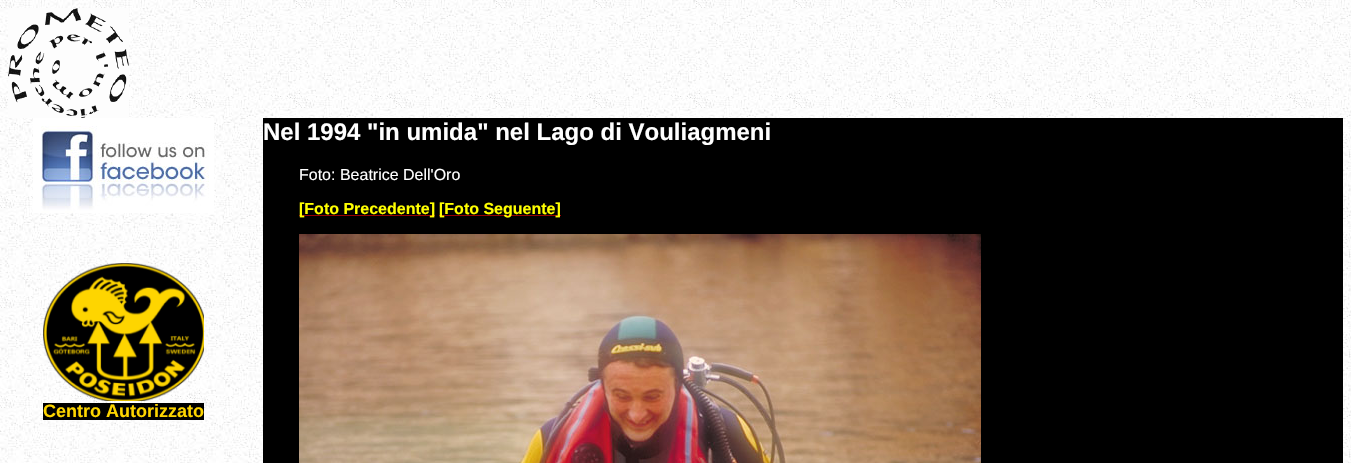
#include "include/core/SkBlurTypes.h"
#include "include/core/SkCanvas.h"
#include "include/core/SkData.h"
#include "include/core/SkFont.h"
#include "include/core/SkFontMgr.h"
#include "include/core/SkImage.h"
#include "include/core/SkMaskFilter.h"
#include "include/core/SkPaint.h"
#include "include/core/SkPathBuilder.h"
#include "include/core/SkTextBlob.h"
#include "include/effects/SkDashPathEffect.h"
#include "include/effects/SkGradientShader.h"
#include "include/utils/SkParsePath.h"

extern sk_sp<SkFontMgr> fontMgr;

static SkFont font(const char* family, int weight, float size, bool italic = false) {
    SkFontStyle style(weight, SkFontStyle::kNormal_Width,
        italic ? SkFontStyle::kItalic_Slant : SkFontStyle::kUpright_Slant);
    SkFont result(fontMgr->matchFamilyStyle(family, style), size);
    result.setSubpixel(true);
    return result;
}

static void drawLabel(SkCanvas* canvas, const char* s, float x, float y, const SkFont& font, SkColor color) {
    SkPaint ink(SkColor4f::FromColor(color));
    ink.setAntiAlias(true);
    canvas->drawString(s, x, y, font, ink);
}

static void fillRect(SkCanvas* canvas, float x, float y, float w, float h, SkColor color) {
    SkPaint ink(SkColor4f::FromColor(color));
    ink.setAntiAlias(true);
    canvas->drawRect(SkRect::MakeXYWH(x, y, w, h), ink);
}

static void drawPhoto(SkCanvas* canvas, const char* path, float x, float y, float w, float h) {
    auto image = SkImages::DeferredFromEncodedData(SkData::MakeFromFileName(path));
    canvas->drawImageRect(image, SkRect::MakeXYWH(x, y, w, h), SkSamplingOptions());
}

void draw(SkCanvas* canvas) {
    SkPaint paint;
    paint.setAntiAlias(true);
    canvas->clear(0xFFFFFFFF);
    drawPhoto(canvas, "assets/img1.png", 0, 0, 1351, 463);
    drawPhoto(canvas, "assets/img2.png", 8, 8, 121, 110);
    fillRect(canvas, 263, 118, 1080, 345, 0xFF000000);
    SkFont font1 = font("Liberation Sans", 700, 24);
    drawLabel(canvas, "Nel 1994 \"in umida\" nel Lago di Vouliagmeni", 263, 140, font1, 0xFFFFFFFF);
    SkFont font2 = font("Liberation Sans", 400, 16);
    drawLabel(canvas, "Foto: Beatrice Dell'Oro", 299, 180, font2, 0xFFFFFFFF);
    fillRect(canvas, 299, 215, 136, 1, 0xFF990000);
    SkFont font3 = font("Liberation Sans", 700, 16);
    drawLabel(canvas, "[Foto Precedente]", 299, 214, font3, 0xFFFFFF00);
    fillRect(canvas, 439, 215, 122, 1, 0xFF990000);
    drawLabel(canvas, "[Foto Seguente]", 439, 214, font3, 0xFFFFFF00);
    drawPhoto(canvas, "assets/img3.png", 299, 234, 682, 229);
    drawPhoto(canvas, "assets/img4.png", 33, 118, 181, 95);
    drawPhoto(canvas, "assets/img5.png", 43, 263, 161, 138);
    fillRect(canvas, 43, 403, 161, 17, 0xFF000000);
    SkFont font4 = font("Liberation Sans", 700, 18);
    drawLabel(canvas, "Centro Autorizzato", 43, 417, font4, 0xFFFED500);
}
